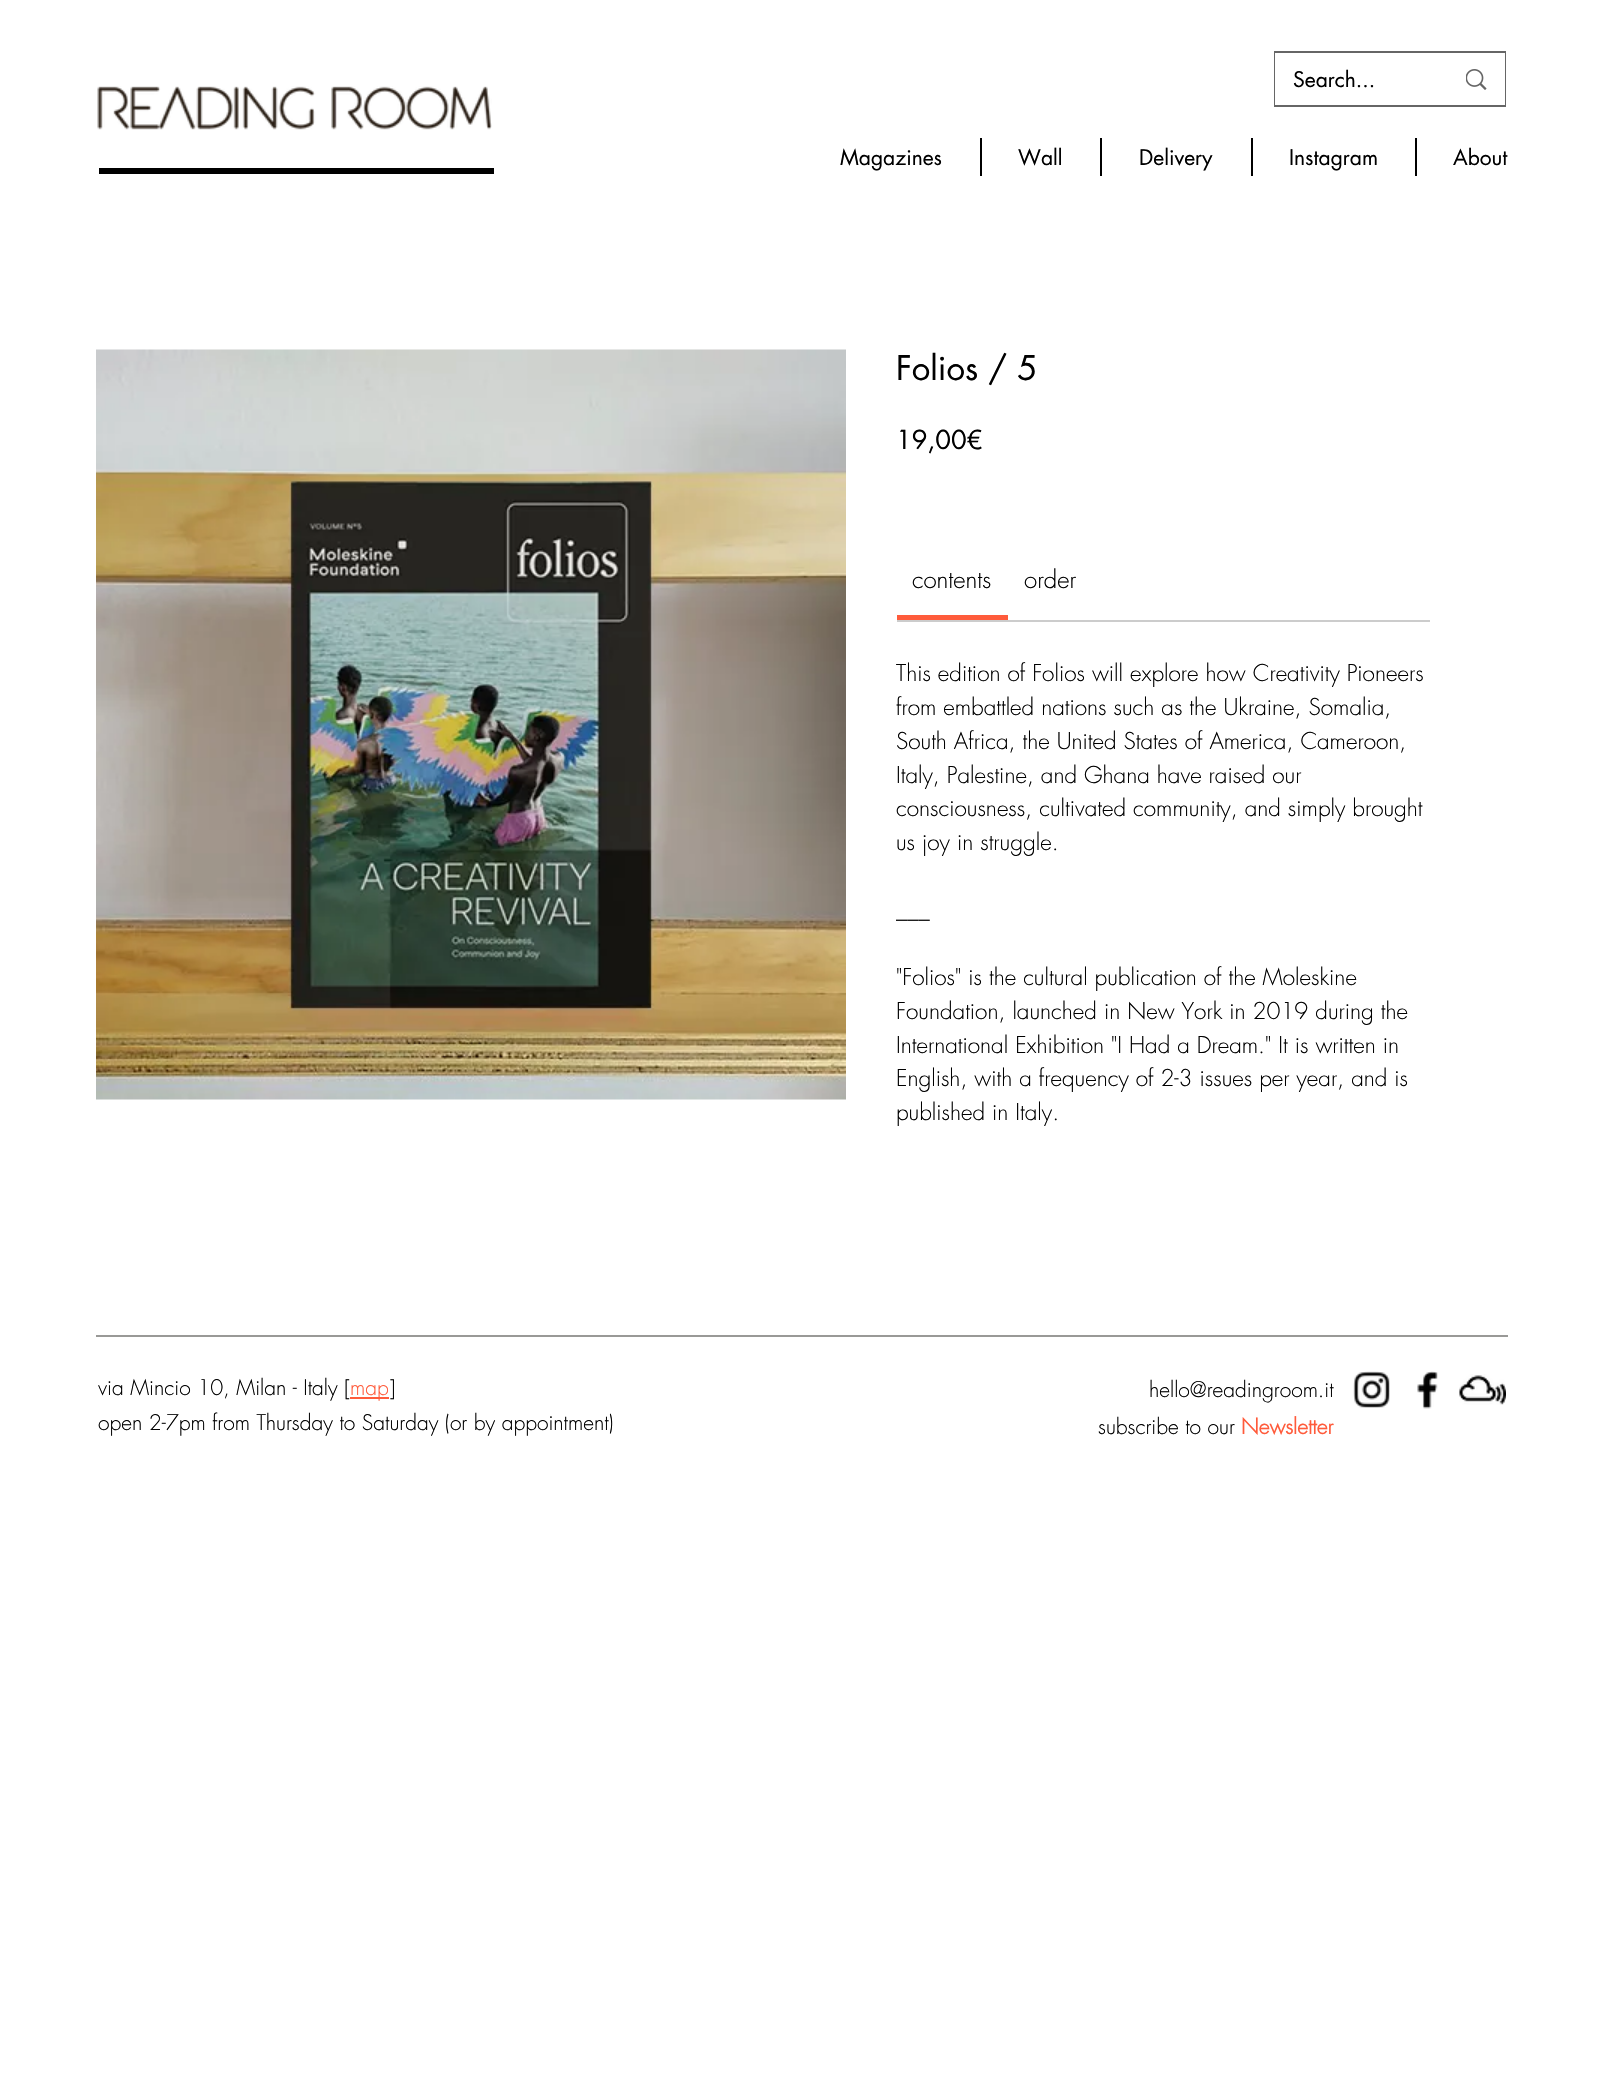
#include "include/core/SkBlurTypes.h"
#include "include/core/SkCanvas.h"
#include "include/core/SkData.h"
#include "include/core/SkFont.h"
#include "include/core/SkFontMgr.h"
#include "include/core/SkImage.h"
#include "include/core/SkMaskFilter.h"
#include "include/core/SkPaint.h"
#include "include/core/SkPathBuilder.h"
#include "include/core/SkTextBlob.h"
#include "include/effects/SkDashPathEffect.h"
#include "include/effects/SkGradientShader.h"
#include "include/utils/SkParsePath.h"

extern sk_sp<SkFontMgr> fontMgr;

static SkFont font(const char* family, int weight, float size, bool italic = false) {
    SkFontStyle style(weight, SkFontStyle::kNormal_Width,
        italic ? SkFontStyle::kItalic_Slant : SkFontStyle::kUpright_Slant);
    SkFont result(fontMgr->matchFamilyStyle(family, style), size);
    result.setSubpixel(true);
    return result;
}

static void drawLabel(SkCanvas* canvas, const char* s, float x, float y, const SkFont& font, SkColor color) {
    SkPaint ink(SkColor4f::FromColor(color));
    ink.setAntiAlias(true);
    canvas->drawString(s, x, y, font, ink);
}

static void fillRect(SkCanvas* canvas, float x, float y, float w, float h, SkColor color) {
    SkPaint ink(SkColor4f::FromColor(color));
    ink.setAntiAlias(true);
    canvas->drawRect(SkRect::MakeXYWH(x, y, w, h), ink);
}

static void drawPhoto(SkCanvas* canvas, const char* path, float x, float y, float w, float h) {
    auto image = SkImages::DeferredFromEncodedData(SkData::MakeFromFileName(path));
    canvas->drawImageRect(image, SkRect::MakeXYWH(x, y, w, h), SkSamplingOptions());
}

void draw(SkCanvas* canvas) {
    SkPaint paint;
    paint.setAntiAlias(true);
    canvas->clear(0xFFFFFFFF);
    paint.setStroke(true);
    paint.setStrokeWidth(2);
    paint.setColor(0xFF666666);
    canvas->drawRect(SkRect::MakeXYWH(1275, 52, 230, 54), paint);
    fillRect(canvas, 1275, 53, 230, 52, 0xFFFFFFFF);
    SkFont font1 = font("futura", 400, 21);
    drawLabel(canvas, "Search...", 1293, 87, font1, 0xFF000000);
    drawPhoto(canvas, "assets/img1.png", 1466, 69, 21, 21);
    drawPhoto(canvas, "assets/img2.png", 97, 86, 395, 44);
    fillRect(canvas, 99, 168, 395, 6, 0xFF000000);
    drawLabel(canvas, "Magazines", 840, 165, font1, 0xFF000000);
    fillRect(canvas, 980, 138, 2, 38, 0xFF000000);
    drawLabel(canvas, "Wall", 1018, 165, font1, 0xFF000000);
    fillRect(canvas, 1100, 138, 2, 38, 0xFF000000);
    drawLabel(canvas, "Delivery", 1139, 165, font1, 0xFF000000);
    fillRect(canvas, 1251, 138, 2, 38, 0xFF000000);
    drawLabel(canvas, "Instagram", 1289, 165, font1, 0xFF000000);
    fillRect(canvas, 1415, 138, 2, 38, 0xFF000000);
    drawLabel(canvas, "About", 1453, 165, font1, 0xFF000000);
    drawPhoto(canvas, "assets/img3.png", 96, 349, 750, 751);
    SkFont font2 = font("futura", 400, 33);
    drawLabel(canvas, "Folios / 5", 896, 380, font2, 0xFF000000);
    SkFont font3 = font("futura", 400, 25.5f);
    drawLabel(canvas, "19,00€", 896, 449, font3, 0xFF000000);
    fillRect(canvas, 897, 620, 533, 2, 0xFFCCCCCC);
    fillRect(canvas, 897, 615, 111, 5, 0xFFFF5B3B);
    SkFont font4 = font("futura", 300, 24);
    drawLabel(canvas, "contents", 912, 588, font4, 0xFF000000);
    drawLabel(canvas, "order", 1024, 588, font4, 0xFF000000);
    SkFont font5 = font("futura", 300, 22.5f);
    drawLabel(canvas, "This edition of Folios will explore how Creativity Pioneers", 896, 681, font5, 0xFF000000);
    drawLabel(canvas, "from embattled nations such as the Ukraine, Somalia,", 896, 715, font5, 0xFF000000);
    drawLabel(canvas, "South Africa, the United States of America, Cameroon,", 896, 749, font5, 0xFF000000);
    drawLabel(canvas, "Italy, Palestine, and Ghana have raised our", 896, 783, font5, 0xFF000000);
    drawLabel(canvas, "consciousness, cultivated community, and simply brought", 896, 816, font5, 0xFF000000);
    drawLabel(canvas, "us joy in struggle.", 896, 850, font5, 0xFF000000);
    drawLabel(canvas, "___", 896, 918, font5, 0xFF000000);
    drawLabel(canvas, "\"Folios\" is the cultural publication of the Moleskine", 896, 985, font5, 0xFF000000);
    drawLabel(canvas, "Foundation, launched in New York in 2019 during the", 896, 1019, font5, 0xFF000000);
    drawLabel(canvas, "International Exhibition \"I Had a Dream.\" It is written in", 896, 1053, font5, 0xFF000000);
    drawLabel(canvas, "English, with a frequency of 2-3 issues per year, and is", 896, 1086, font5, 0xFF000000);
    drawLabel(canvas, "published in Italy.", 896, 1120, font5, 0xFF000000);
    fillRect(canvas, 96, 1335, 1412, 2, 0xFF999997);
    SkFont font6 = font("futura", 300, 21);
    drawLabel(canvas, "via Mincio 10, Milan - Italy [", 98, 1395, font6, 0xFF000000);
    fillRect(canvas, 350, 1397, 39, 2, 0xFFFF5B3B);
    drawLabel(canvas, "map", 350, 1395, font6, 0xFFFF5B3B);
    drawLabel(canvas, "]", 389, 1395, font6, 0xFF000000);
    drawLabel(canvas, "open 2-7pm from Thursday to Saturday (or by appointment)", 98, 1430, font6, 0xFF000000);
    drawLabel(canvas, "hello@readingroom.it", 1149, 1397, font6, 0xFF000000);
    drawLabel(canvas, "subscribe to our", 1098, 1434, font6, 0xFF000000);
    SkFont font7 = font("futura", 700, 21);
    drawLabel(canvas, "Newsletter", 1241, 1434, font7, 0xFFFF5B3B);
    drawPhoto(canvas, "assets/img4.png", 1353, 1371, 37, 37);
    drawPhoto(canvas, "assets/img5.png", 1417, 1371, 21, 38);
    drawPhoto(canvas, "assets/img6.png", 1459, 1374, 47, 31);
}
